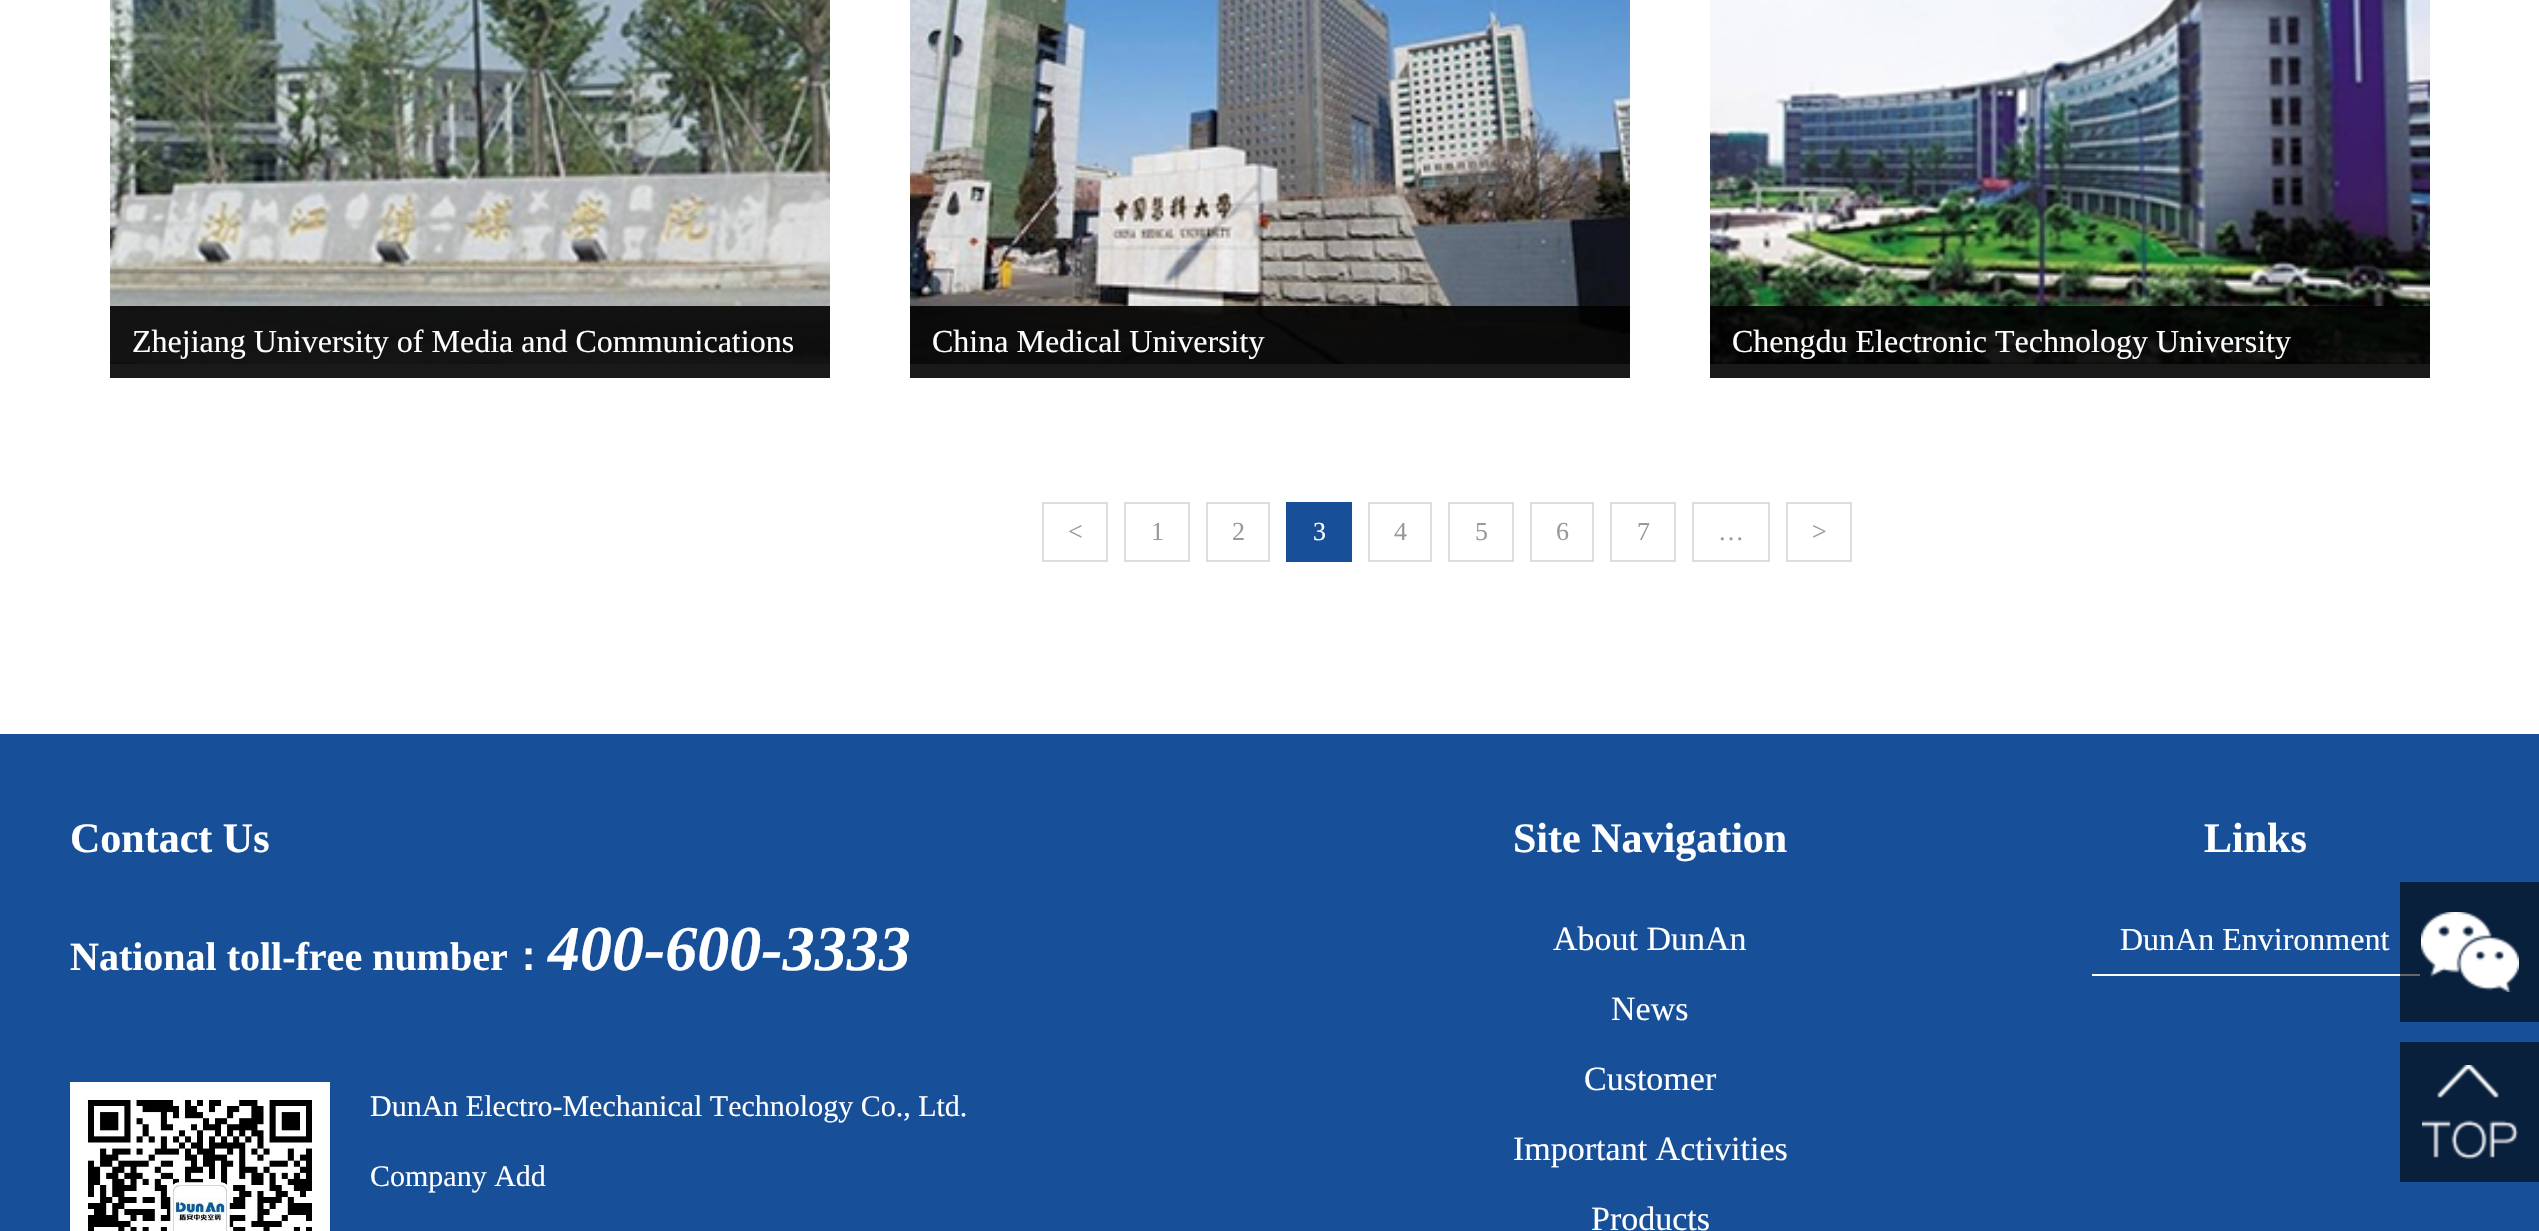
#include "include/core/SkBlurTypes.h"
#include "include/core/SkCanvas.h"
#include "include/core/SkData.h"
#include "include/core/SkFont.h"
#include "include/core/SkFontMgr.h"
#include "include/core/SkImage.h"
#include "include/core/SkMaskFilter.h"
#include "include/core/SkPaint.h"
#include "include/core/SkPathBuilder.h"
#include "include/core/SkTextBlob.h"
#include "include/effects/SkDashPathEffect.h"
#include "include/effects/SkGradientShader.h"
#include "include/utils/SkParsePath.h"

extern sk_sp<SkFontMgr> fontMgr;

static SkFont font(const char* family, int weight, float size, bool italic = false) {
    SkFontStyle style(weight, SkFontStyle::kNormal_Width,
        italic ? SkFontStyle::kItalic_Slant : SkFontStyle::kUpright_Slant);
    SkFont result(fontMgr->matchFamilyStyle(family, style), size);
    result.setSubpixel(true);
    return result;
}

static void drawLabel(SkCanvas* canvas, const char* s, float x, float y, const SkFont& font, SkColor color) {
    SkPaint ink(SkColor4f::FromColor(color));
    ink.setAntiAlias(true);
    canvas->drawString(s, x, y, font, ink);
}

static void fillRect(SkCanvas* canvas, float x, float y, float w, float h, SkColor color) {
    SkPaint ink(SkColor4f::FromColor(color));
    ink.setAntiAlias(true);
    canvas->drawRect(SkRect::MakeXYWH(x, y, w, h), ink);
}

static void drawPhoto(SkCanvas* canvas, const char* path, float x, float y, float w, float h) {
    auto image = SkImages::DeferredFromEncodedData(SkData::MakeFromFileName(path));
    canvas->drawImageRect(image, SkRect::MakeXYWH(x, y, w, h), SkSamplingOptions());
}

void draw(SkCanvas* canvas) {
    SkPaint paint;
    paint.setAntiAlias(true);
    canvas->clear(0xFFFFFFFF);
    drawPhoto(canvas, "assets/img1.png", 110, 0, 720, 364);
    fillRect(canvas, 110, 306, 720, 72, 0xE6000000);
    SkFont font1 = font("Liberation Serif", 400, 32);
    drawLabel(canvas, "Zhejiang University of Media and Communications", 132, 352, font1, 0xFFFFFFFF);
    drawPhoto(canvas, "assets/img2.png", 910, 0, 720, 364);
    fillRect(canvas, 910, 306, 720, 72, 0xE6000000);
    drawLabel(canvas, "China Medical University", 932, 352, font1, 0xFFFFFFFF);
    drawPhoto(canvas, "assets/img3.png", 1710, 0, 720, 364);
    fillRect(canvas, 1710, 306, 720, 72, 0xE6000000);
    drawLabel(canvas, "Chengdu Electronic Technology University", 1732, 352, font1, 0xFFFFFFFF);
    paint.setStroke(true);
    paint.setStrokeWidth(2);
    paint.setColor(0xFFDDDDDD);
    canvas->drawRect(SkRect::MakeXYWH(1043, 503, 64, 58), paint);
    SkFont font2 = font("Liberation Serif", 400, 26);
    drawLabel(canvas, "<", 1068, 540, font2, 0xFF999999);
    canvas->drawRect(SkRect::MakeXYWH(1125, 503, 64, 58), paint);
    drawLabel(canvas, "1", 1151, 540, font2, 0xFF999999);
    canvas->drawRect(SkRect::MakeXYWH(1207, 503, 62, 58), paint);
    drawLabel(canvas, "2", 1232, 540, font2, 0xFF999999);
    fillRect(canvas, 1286, 502, 66, 60, 0xFF174F99);
    drawLabel(canvas, "3", 1313, 540, font2, 0xFFFFFFFF);
    canvas->drawRect(SkRect::MakeXYWH(1369, 503, 62, 58), paint);
    drawLabel(canvas, "4", 1394, 540, font2, 0xFF999999);
    canvas->drawRect(SkRect::MakeXYWH(1449, 503, 64, 58), paint);
    drawLabel(canvas, "5", 1475, 540, font2, 0xFF999999);
    canvas->drawRect(SkRect::MakeXYWH(1531, 503, 62, 58), paint);
    drawLabel(canvas, "6", 1556, 540, font2, 0xFF999999);
    canvas->drawRect(SkRect::MakeXYWH(1611, 503, 64, 58), paint);
    drawLabel(canvas, "7", 1637, 540, font2, 0xFF999999);
    canvas->drawRect(SkRect::MakeXYWH(1787, 503, 64, 58), paint);
    drawLabel(canvas, ">", 1812, 540, font2, 0xFF999999);
    canvas->drawRect(SkRect::MakeXYWH(1693, 503, 76, 58), paint);
    drawLabel(canvas, "…", 1718, 540, font2, 0xFF999999);
    fillRect(canvas, 0, 734, 2539, 497, 0xFF174F99);
    fillRect(canvas, 2400, 882, 139, 140, 0xFF09203D);
    SkFont font3 = font("Liberation Serif", 700, 42);
    drawLabel(canvas, "Contact Us", 70, 852, font3, 0xFFFFFFFF);
    SkFont font4 = font("Liberation Serif", 700, 40);
    drawLabel(canvas, "National toll-free number", 70, 970, font4, 0xFFFFFFFF);
    SkFont font5 = font("WenQuanYi Zen Hei", 700, 40);
    drawLabel(canvas, "：", 508, 970, font5, 0xFFFFFFFF);
    SkFont font6 = font("Liberation Serif", 700, 64, true);
    drawLabel(canvas, "400-600-3333", 548, 970, font6, 0xFFFFFFFF);
    drawPhoto(canvas, "assets/img4.png", 70, 1082, 260, 149);
    SkFont font7 = font("Liberation Serif", 400, 30);
    drawLabel(canvas, "DunAn Electro-Mechanical Technology Co., Ltd.", 370, 1116, font7, 0xFFFFFFFF);
    drawLabel(canvas, "Company Add", 370, 1186, font7, 0xFFFFFFFF);
    drawLabel(canvas, "Site Navigation", 1513, 852, font3, 0xFFFFFFFF);
    SkFont font8 = font("Liberation Serif", 400, 34);
    drawLabel(canvas, "About DunAn", 1553, 950, font8, 0xFFFFFFFF);
    drawLabel(canvas, "News", 1611, 1020, font8, 0xFFFFFFFF);
    drawLabel(canvas, "Customer", 1584, 1090, font8, 0xFFFFFFFF);
    drawLabel(canvas, "Important Activities", 1513, 1160, font8, 0xFFFFFFFF);
    drawLabel(canvas, "Products", 1591, 1230, font8, 0xFFFFFFFF);
    drawLabel(canvas, "Links", 2204, 852, font3, 0xFFFFFFFF);
    fillRect(canvas, 2092, 974, 308, 2, 0xFFFFFFFF);
    fillRect(canvas, 2400, 974, 20, 2, 0xFF666666);
    drawLabel(canvas, "DunAn Environment", 2120, 950, font1, 0xFFFFFFFF);
    drawPhoto(canvas, "assets/img5.png", 2421, 912, 98, 80);
    fillRect(canvas, 2400, 1042, 139, 140, 0xFF09203D);
    drawPhoto(canvas, "assets/img6.png", 2422, 1065, 96, 94);
}
